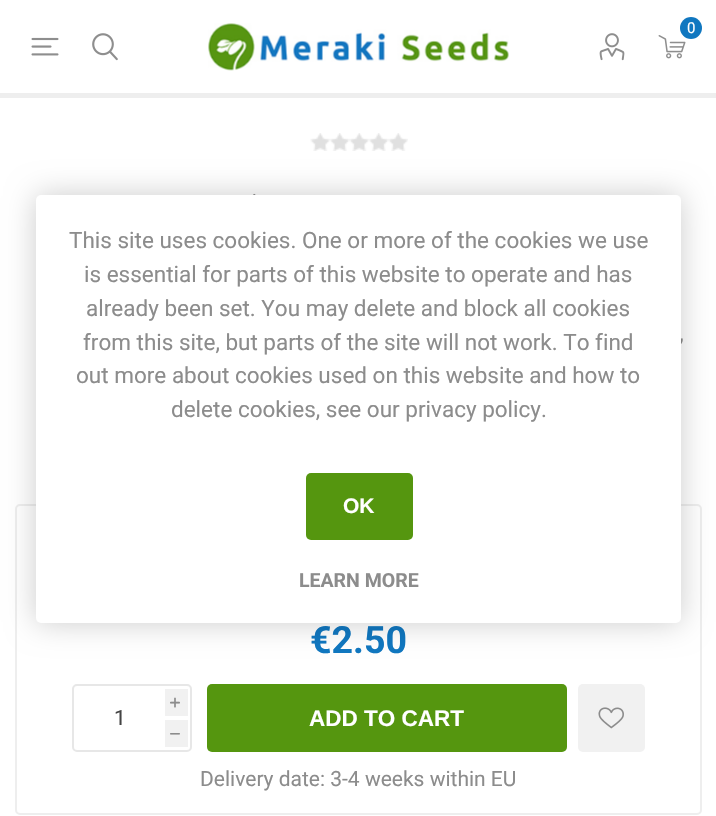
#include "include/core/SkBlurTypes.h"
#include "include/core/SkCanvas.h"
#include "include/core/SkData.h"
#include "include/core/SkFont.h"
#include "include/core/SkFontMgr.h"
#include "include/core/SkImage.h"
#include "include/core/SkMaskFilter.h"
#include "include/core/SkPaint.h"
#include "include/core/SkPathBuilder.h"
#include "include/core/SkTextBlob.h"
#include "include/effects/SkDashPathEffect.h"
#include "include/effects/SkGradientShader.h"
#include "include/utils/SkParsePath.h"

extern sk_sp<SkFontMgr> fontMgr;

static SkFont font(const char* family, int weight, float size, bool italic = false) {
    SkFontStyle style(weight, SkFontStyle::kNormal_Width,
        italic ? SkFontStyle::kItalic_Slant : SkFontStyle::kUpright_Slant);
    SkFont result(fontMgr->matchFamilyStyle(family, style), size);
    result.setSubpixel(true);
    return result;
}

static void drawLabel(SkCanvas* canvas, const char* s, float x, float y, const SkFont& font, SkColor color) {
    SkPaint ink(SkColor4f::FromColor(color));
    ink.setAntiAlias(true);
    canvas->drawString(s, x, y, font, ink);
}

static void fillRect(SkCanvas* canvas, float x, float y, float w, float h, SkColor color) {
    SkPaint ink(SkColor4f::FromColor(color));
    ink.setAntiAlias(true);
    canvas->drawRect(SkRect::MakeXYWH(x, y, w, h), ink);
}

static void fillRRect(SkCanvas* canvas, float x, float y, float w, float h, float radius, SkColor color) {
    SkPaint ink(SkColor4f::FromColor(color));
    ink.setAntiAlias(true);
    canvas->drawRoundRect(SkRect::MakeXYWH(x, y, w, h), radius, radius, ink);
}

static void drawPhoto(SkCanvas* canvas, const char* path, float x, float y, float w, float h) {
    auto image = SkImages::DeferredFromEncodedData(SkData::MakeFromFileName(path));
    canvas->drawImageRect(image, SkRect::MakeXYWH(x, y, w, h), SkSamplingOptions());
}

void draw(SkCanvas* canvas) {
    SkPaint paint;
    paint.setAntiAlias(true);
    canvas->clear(0xFFFFFFFF);
    fillRect(canvas, 0, 93, 716, 5, 0xFFEEEEEE);
    drawPhoto(canvas, "assets/img1.png", 31, 37, 28, 19);
    drawPhoto(canvas, "assets/img2.png", 92, 33, 26, 28);
    drawPhoto(canvas, "assets/img3.png", 208, 23, 301, 48);
    drawPhoto(canvas, "assets/img4.png", 599, 33, 26, 28);
    drawPhoto(canvas, "assets/img5.png", 658, 35, 28, 24);
    paint.setColor(0xFF1077C0);
    canvas->drawCircle(691, 28, 11, paint);
    SkFont font1 = font("Roboto", 400, 15);
    drawLabel(canvas, "0", 687, 33, font1, 0xFFFFFFFF);
    drawPhoto(canvas, "assets/img6.png", 310, 133, 98, 18);
    drawPhoto(canvas, "assets/img7.png", 253, 193, 3, 2);
    SkFont font2 = font("Roboto", 400, 24);
    drawLabel(canvas, ",", 679, 341, font2, 0xFF8C8C8C);
    paint.setStroke(true);
    paint.setStrokeWidth(2);
    paint.setColor(0xFFEEEEEE);
    canvas->drawRoundRect(SkRect::MakeXYWH(16, 505, 685, 309), 4, 4, paint);
    SkFont font3 = font("Roboto", 700, 37.5f);
    drawLabel(canvas, "€2.50", 310, 653, font3, 0xFF1077C0);
    paint.setColor(0xFFE7E7E7);
    canvas->drawRoundRect(SkRect::MakeXYWH(73, 685, 118, 66), 4, 4, paint);
    fillRect(canvas, 165, 689, 23, 27, 0xFFF1F1F1);
    SkFont font4 = font("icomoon", 400, 10);
    drawLabel(canvas, "i", 170, 707, font4, 0xFF8C8C8C);
    SkFont font5 = font("Roboto", 400, 21);
    drawLabel(canvas, "1", 114, 725, font5, 0xFF444444);
    fillRect(canvas, 165, 720, 23, 27, 0xFFF1F1F1);
    drawLabel(canvas, "h", 170, 738, font4, 0xFF8C8C8C);
    fillRRect(canvas, 207, 684, 360, 68, 5, 0xFF55960F);
    SkFont font6 = font("Liberation Sans", 700, 22.5f);
    drawLabel(canvas, "ADD TO CART", 309, 726, font6, 0xFFFFFFFF);
    fillRRect(canvas, 578, 684, 67, 68, 5, 0xFFF1F1F1);
    drawPhoto(canvas, "assets/img8.png", 598, 707, 26, 22);
    drawLabel(canvas, "Delivery date: 3-4 weeks within EU", 200, 786, font5, 0xFF8C8C8C);
    paint.setStroke(false);
    paint.setColor(0x33000000);
    paint.setMaskFilter(SkMaskFilter::MakeBlur(kNormal_SkBlurStyle, 15));
    canvas->drawRoundRect(SkRect::MakeXYWH(36, 195, 645, 428), 5, 5, paint);
    paint.setMaskFilter(nullptr);
    fillRRect(canvas, 36, 195, 645, 428, 5, 0xFFFFFFFF);
    SkFont font7 = font("Roboto", 400, 22.5f);
    drawLabel(canvas, "This site uses cookies. One or more of the cookies we use", 69, 248, font7, 0xFF8C8C8C);
    drawLabel(canvas, "is essential for parts of this website to operate and has", 84, 282, font7, 0xFF8C8C8C);
    drawLabel(canvas, "already been set. You may delete and block all cookies", 86, 316, font7, 0xFF8C8C8C);
    drawLabel(canvas, "from this site, but parts of the site will not work. To find", 83, 350, font7, 0xFF8C8C8C);
    drawLabel(canvas, "out more about cookies used on this website and how to", 76, 383, font7, 0xFF8C8C8C);
    drawLabel(canvas, "delete cookies, see our privacy policy.", 171, 417, font7, 0xFF8C8C8C);
    fillRRect(canvas, 306, 473, 107, 67, 5, 0xFF55960F);
    SkFont font8 = font("Liberation Sans", 700, 21);
    drawLabel(canvas, "OK", 343, 513, font8, 0xFFFFFFFF);
    SkFont font9 = font("Roboto", 700, 19.5f);
    drawLabel(canvas, "LEARN MORE", 299, 587, font9, 0xFF8C8C8C);
}
